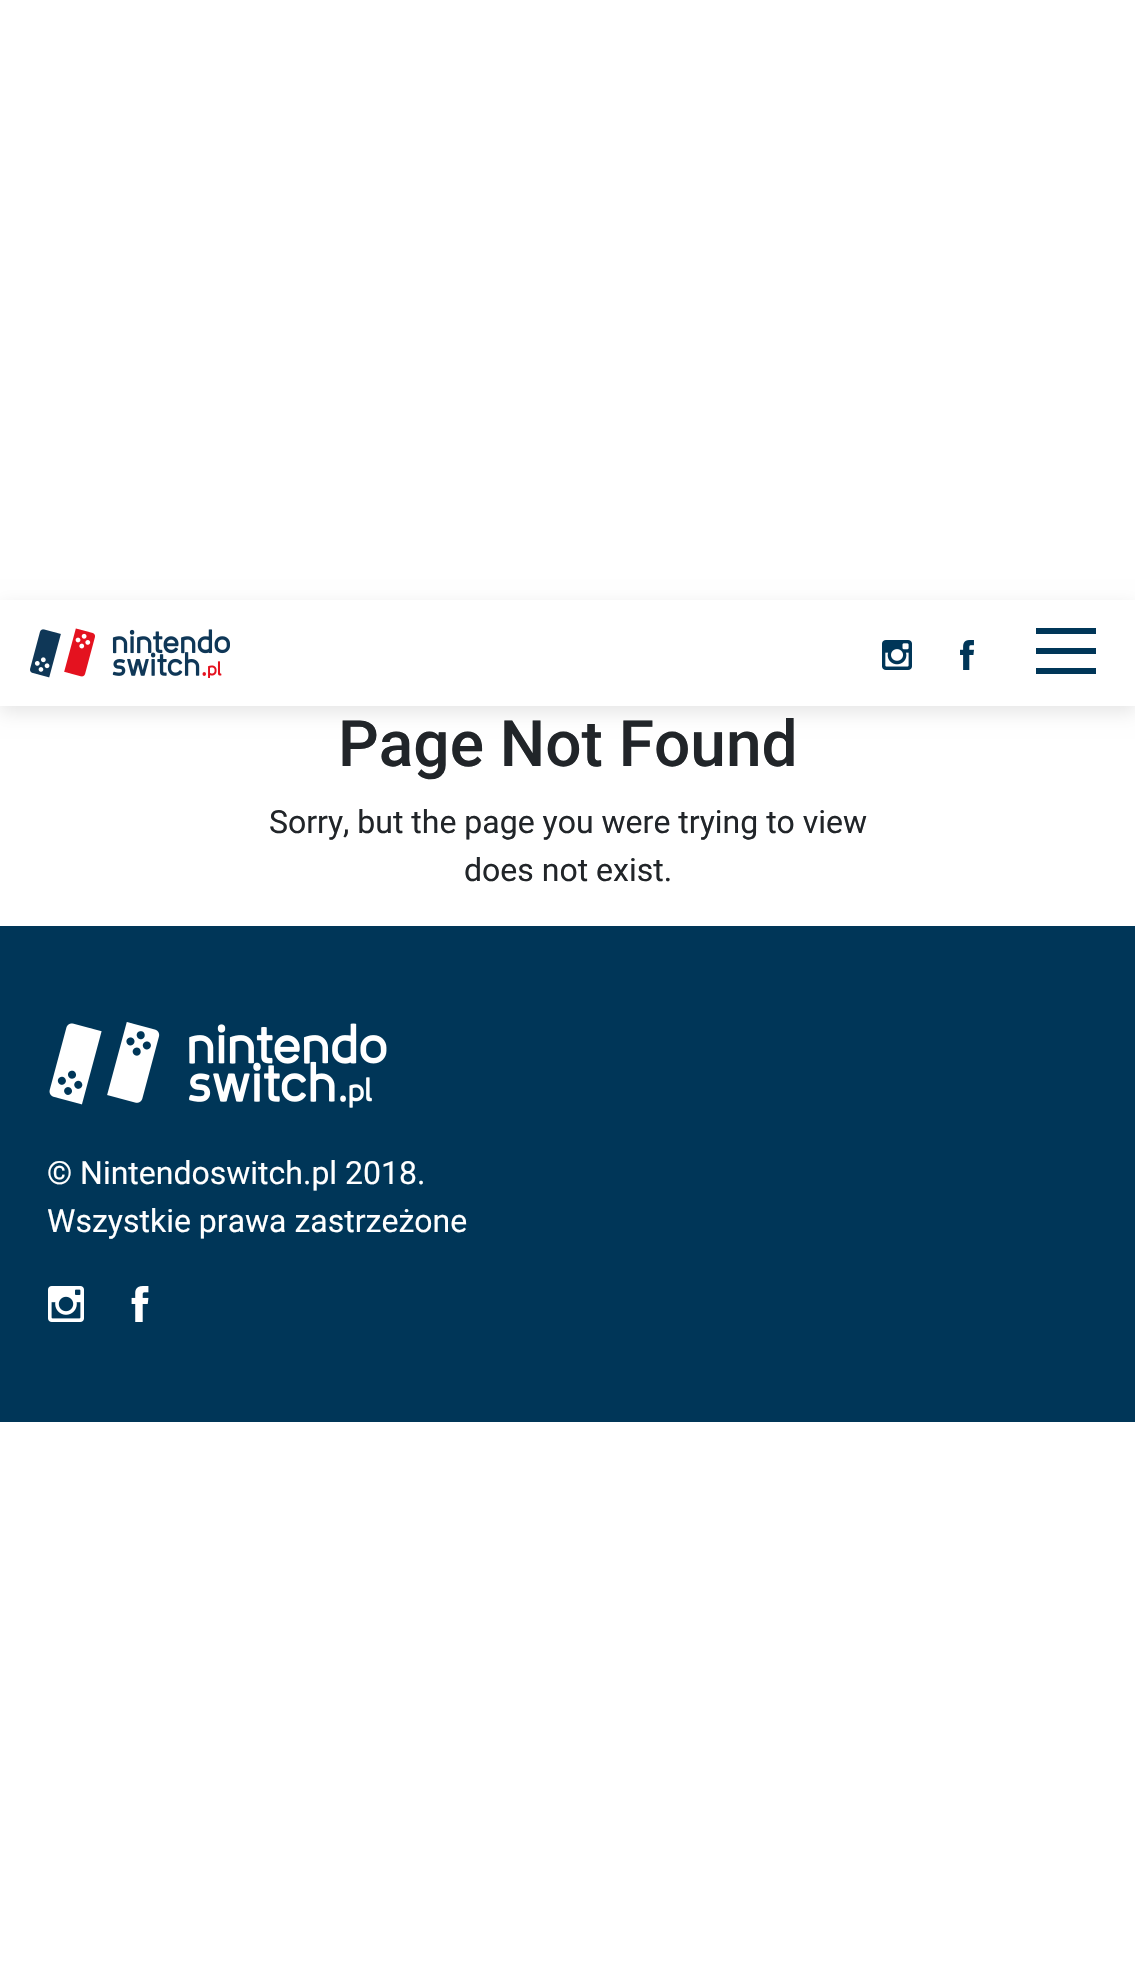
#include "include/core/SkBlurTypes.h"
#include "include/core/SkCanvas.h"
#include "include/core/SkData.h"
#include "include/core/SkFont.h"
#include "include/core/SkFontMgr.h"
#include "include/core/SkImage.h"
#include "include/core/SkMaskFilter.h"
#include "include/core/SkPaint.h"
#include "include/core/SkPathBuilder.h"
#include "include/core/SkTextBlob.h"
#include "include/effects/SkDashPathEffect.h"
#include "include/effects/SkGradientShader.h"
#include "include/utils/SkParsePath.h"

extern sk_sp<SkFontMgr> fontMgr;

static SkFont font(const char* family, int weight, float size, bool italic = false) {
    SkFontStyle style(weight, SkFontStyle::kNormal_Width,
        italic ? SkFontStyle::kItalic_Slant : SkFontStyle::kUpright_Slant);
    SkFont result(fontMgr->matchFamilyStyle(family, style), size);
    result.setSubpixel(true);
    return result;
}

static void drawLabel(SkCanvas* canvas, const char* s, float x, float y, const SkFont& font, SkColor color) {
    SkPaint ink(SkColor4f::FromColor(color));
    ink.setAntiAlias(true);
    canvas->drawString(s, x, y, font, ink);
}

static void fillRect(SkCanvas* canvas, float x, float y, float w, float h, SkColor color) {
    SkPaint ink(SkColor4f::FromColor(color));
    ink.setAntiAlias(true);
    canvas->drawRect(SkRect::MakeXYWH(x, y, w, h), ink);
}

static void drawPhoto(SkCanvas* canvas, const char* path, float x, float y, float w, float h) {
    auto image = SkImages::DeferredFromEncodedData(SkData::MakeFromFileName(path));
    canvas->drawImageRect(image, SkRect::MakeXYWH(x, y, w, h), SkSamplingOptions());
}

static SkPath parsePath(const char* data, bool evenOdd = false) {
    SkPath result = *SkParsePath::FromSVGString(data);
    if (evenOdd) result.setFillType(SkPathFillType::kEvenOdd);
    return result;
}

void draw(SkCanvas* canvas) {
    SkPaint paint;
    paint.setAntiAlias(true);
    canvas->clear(0xFFFFFFFF);
    canvas->save();
    canvas->clipPath(parsePath("M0 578H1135V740H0ZM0 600H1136V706H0Z", true), true);
    paint.setColor(0x1A000000);
    paint.setMaskFilter(SkMaskFilter::MakeBlur(kNormal_SkBlurStyle, 9));
    canvas->drawRect(SkRect::MakeXYWH(0, 606, 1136, 106), paint);
    paint.setMaskFilter(nullptr);
    canvas->restore();
    drawPhoto(canvas, "assets/img1.png", 30, 628, 200, 50);
    drawPhoto(canvas, "assets/img2.png", 882, 640, 30, 30);
    drawPhoto(canvas, "assets/img3.png", 960, 640, 14, 30);
    fillRect(canvas, 1036, 648, 60, 6, 0xFF003658);
    fillRect(canvas, 1036, 628, 60, 6, 0xFF003658);
    fillRect(canvas, 1036, 668, 60, 6, 0xFF003658);
    SkFont font1 = font("Roboto", 500, 64);
    drawLabel(canvas, "Page Not Found", 338, 766, font1, 0xFF212529);
    SkFont font2 = font("Roboto", 400, 32);
    drawLabel(canvas, "Sorry, but the page you were trying to view", 269, 833, font2, 0xFF212529);
    drawLabel(canvas, "does not exist.", 464, 881, font2, 0xFF212529);
    fillRect(canvas, 0, 926, 1135, 496, 0xFF003658);
    drawPhoto(canvas, "assets/img4.png", 49, 1022, 338, 86);
    drawLabel(canvas, "© Nintendoswitch.pl 2018.", 47, 1184, font2, 0xFFFFFFFF);
    drawLabel(canvas, "Wszystkie prawa zastrzeżone", 47, 1232, font2, 0xFFFFFFFF);
    drawPhoto(canvas, "assets/img5.png", 48, 1286, 36, 36);
    drawPhoto(canvas, "assets/img6.png", 131, 1286, 18, 36);
}
